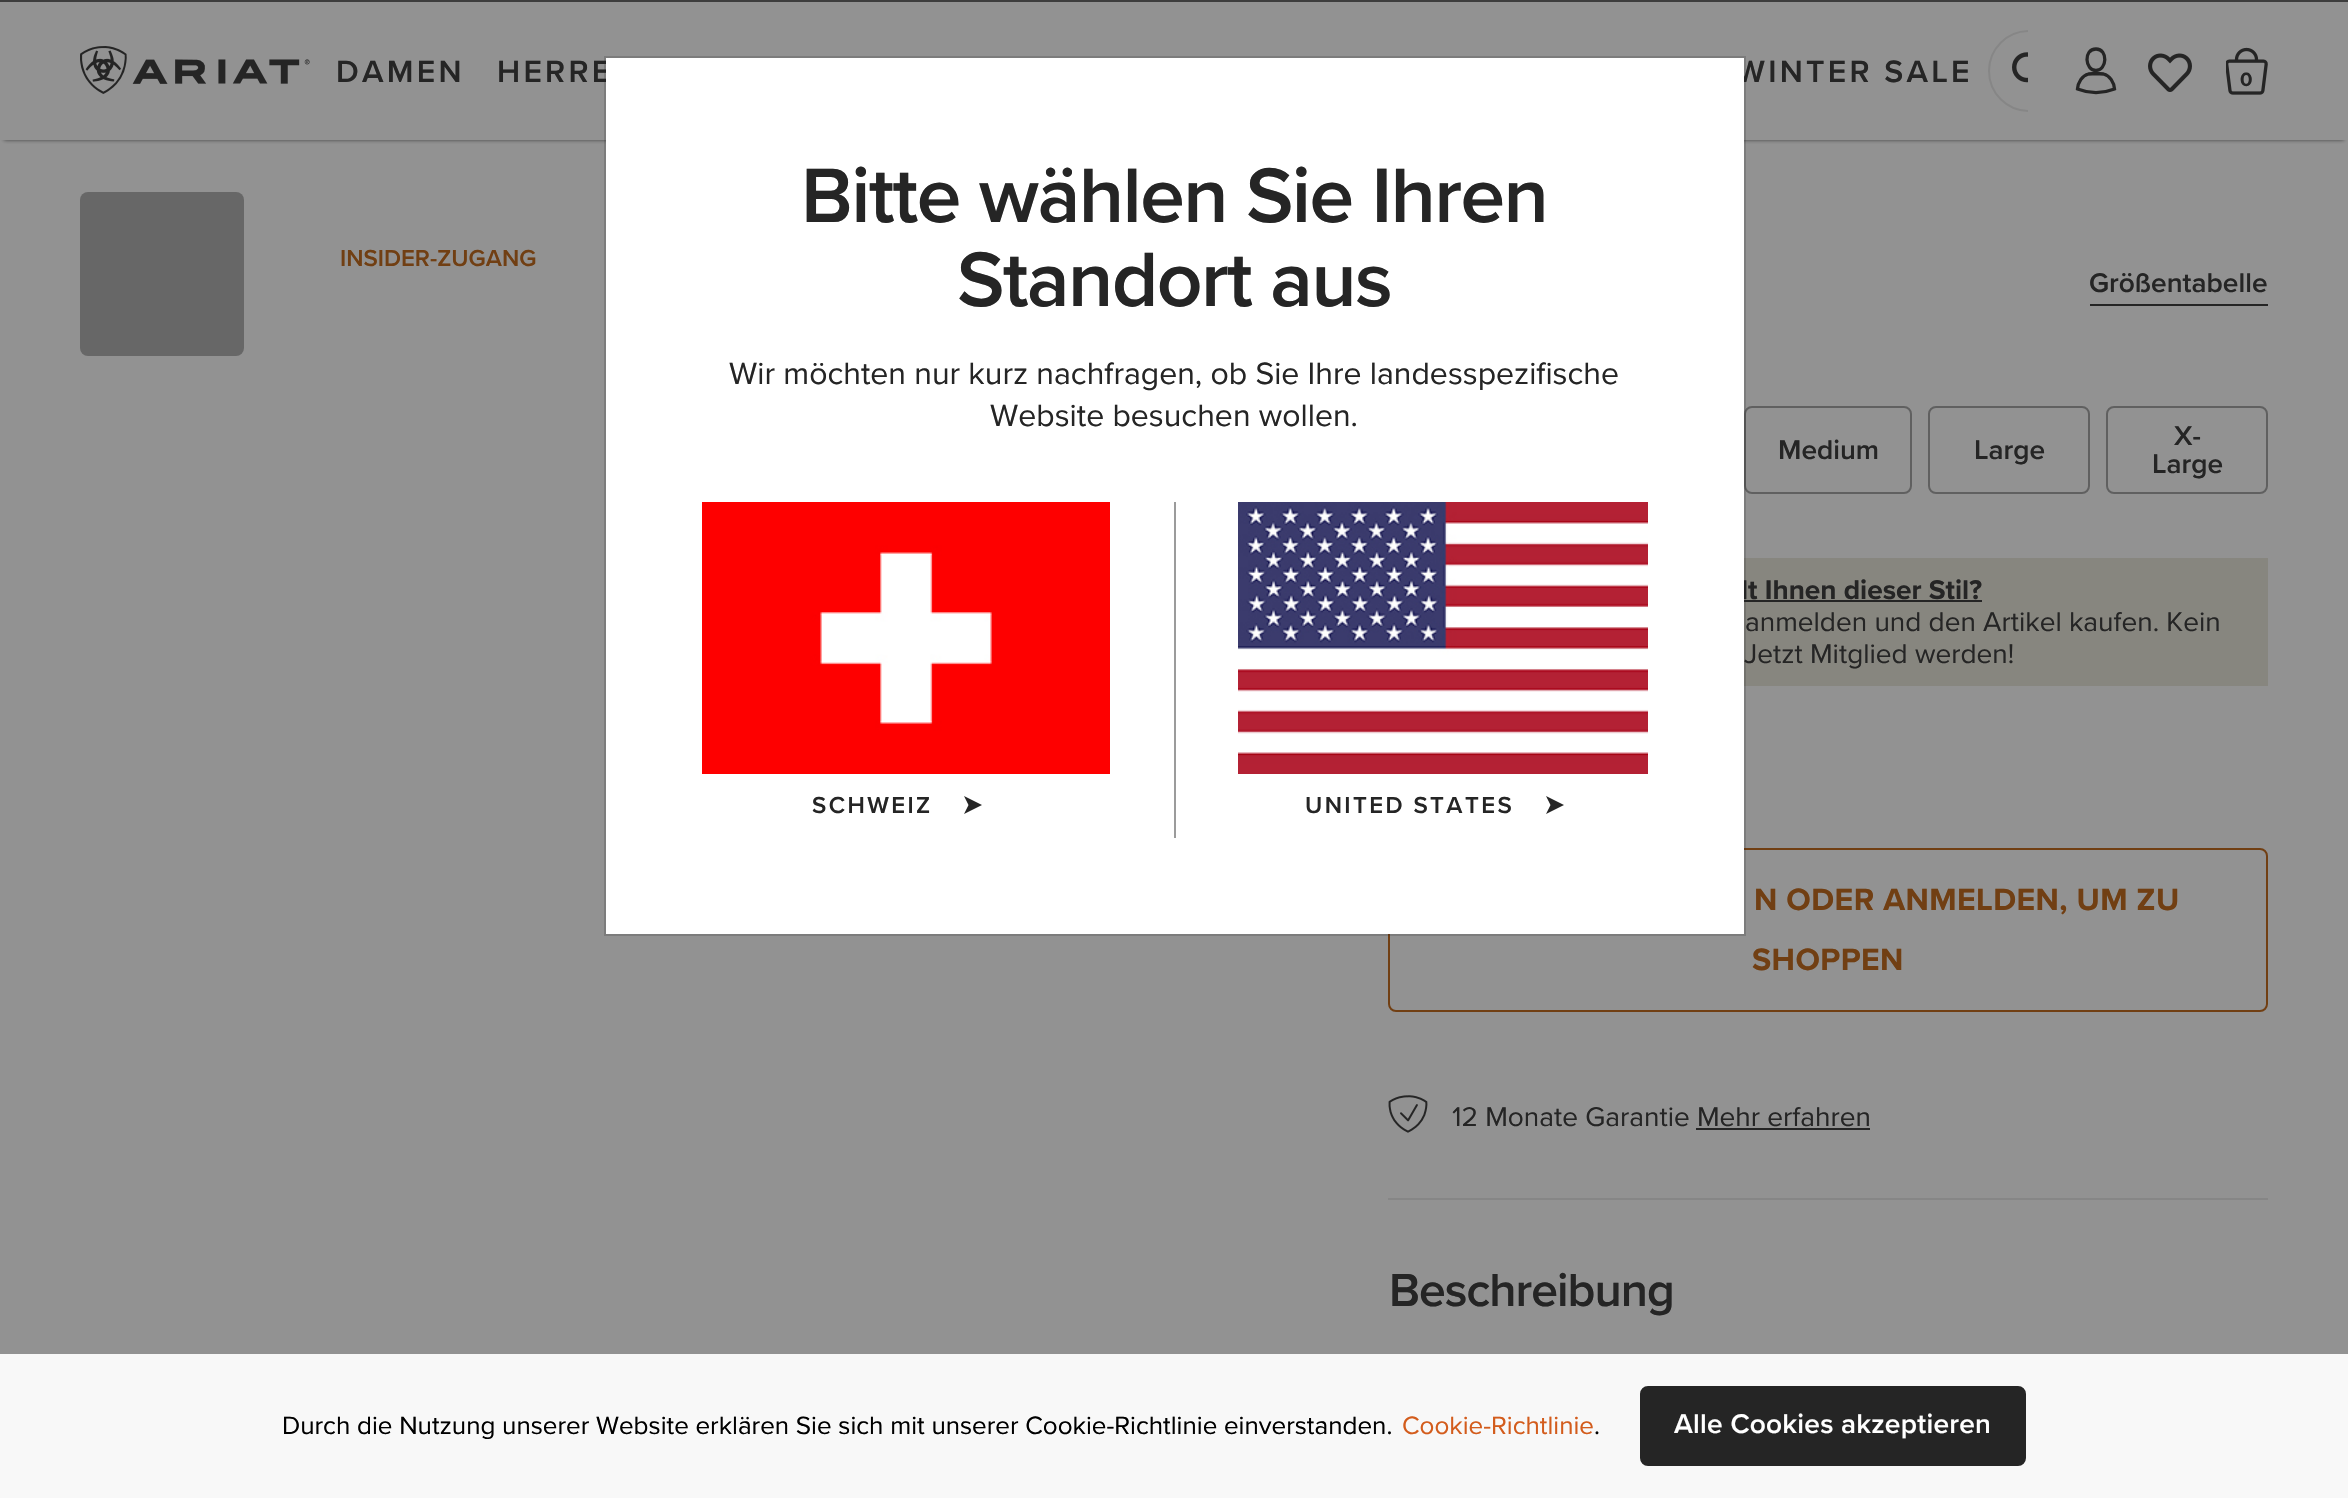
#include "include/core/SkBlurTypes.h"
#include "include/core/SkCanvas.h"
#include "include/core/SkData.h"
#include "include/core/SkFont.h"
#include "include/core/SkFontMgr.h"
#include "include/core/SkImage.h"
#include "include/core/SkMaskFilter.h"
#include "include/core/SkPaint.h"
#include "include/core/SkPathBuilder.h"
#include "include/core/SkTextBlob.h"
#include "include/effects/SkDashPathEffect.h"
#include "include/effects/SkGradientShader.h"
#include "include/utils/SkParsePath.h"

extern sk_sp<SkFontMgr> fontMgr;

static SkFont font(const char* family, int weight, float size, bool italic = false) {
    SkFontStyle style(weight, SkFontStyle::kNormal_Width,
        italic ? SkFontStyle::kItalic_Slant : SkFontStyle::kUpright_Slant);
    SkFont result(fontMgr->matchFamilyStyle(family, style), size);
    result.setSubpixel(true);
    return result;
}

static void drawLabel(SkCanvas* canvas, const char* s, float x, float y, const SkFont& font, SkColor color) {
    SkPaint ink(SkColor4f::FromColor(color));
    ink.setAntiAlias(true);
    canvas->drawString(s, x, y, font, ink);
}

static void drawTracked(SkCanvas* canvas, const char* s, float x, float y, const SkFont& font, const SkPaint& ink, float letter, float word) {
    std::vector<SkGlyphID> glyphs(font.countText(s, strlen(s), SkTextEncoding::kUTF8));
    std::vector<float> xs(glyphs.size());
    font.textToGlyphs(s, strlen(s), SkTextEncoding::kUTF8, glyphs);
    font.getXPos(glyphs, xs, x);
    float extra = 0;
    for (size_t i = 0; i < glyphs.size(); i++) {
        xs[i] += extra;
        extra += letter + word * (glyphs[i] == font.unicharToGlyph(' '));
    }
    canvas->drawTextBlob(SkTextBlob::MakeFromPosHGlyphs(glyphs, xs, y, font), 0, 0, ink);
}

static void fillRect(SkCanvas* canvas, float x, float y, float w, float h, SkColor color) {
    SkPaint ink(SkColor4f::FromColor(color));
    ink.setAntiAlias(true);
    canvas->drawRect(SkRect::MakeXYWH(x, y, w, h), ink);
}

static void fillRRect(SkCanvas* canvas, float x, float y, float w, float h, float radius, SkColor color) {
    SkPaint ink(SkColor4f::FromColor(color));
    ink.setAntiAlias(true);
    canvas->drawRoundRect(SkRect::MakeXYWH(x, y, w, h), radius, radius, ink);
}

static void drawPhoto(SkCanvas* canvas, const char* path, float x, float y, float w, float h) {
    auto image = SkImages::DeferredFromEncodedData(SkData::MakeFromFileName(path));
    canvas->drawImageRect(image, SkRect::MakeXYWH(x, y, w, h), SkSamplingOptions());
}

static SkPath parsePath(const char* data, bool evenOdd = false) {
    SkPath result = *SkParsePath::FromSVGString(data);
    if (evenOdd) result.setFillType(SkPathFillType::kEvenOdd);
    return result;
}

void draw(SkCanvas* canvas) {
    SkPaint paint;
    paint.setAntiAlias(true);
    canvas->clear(0xFF929292);
    paint.setColor(0xA6131313);
    paint.setMaskFilter(SkMaskFilter::MakeBlur(kNormal_SkBlurStyle, 2));
    canvas->drawRect(SkRect::MakeXYWH(4, -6, 2340, 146), paint);
    paint.setMaskFilter(nullptr);
    fillRect(canvas, 0, 0, 2348, 2, 0xFF3D3D3D);
    fillRect(canvas, 0, 2, 2348, 138, 0xFF929292);
    drawPhoto(canvas, "assets/img1.png", 80, 46, 230, 48);
    SkFont font1 = font("Proxima Nova", 600, 32);
    paint.setColor(0xFF252525);
    drawTracked(canvas, "DAMEN", 336, 82, font1, paint, 3.25f, 0);
    drawTracked(canvas, "HERRE", 497, 82, font1, paint, 3.25f, 0);
    drawTracked(canvas, "WINTER SALE", 1736, 82, font1, paint, 3.25f, 0);
    paint.setStroke(true);
    paint.setStrokeWidth(3.3f);
    paint.setStrokeCap(SkPaint::kSquare_Cap);
    canvas->drawPath(parsePath("M2096 70.5C2085 70.5 2083 49 2096 49C2108.5 49 2107 70.5 2096 70.5ZM2096 73.5L2103.5 74C2110 75.5 2114 82.5 2114.5 89C2103 93.5 2089 93.5 2077.5 89C2078 82.5 2082 75.5 2088.5 74Z"), paint);
    canvas->save();
    canvas->clipRect(SkRect::MakeXYWH(1988, 30, 40, 82));
    paint.setStrokeWidth(2);
    paint.setStrokeCap(SkPaint::kButt_Cap);
    paint.setColor(0xFF868686);
    canvas->drawRoundRect(SkRect::MakeXYWH(1989, 31, 100, 80), 40, 40, paint);
    canvas->restore();
    drawPhoto(canvas, "assets/img2.png", 2012, 52, 16, 31);
    drawPhoto(canvas, "assets/img3.png", 2148, 53, 44, 39);
    drawPhoto(canvas, "assets/img4.png", 2226, 47, 42, 48);
    SkFont font2 = font("Proxima Nova", 700, 20);
    paint.setStroke(false);
    paint.setColor(0xFF252525);
    drawTracked(canvas, "0", 2240, 86, font2, paint, 1, 0);
    fillRect(canvas, 1744, 558, 524, 128, 0xFF87867F);
    SkFont font3 = font("Proxima Nova", 700, 28);
    drawLabel(canvas, "lt Ihnen dieser Stil?", 1741, 599, font3, 0xFF252525);
    paint.setStroke(true);
    paint.setColor(0xFF713F13);
    canvas->drawRoundRect(SkRect::MakeXYWH(1389, 849, 878, 162), 7, 7, paint);
    fillRect(canvas, 606, 58, 1138, 876, 0xFFFFFFFF);
    paint.setColor(0xFF606060);
    canvas->drawRoundRect(SkRect::MakeXYWH(1745, 407, 166, 86), 7, 7, paint);
    fillRect(canvas, 1744, 600, 238, 2, 0xFF252525);
    SkFont font4 = font("Proxima Nova", 400, 28);
    drawLabel(canvas, "Jetzt Mitglied werden!", 1744, 663, font4, 0xFF252525);
    paint.setColor(0x33252525);
    canvas->drawRect(SkRect::MakeXYWH(605, 57, 1140, 878), paint);
    SkFont font5 = font("Proxima Nova", 600, 80);
    paint.setStroke(false);
    paint.setColor(0xFF252525);
    drawTracked(canvas, "Bitte wählen Sie Ihren", 801, 222, font5, paint, -1.6f, 0);
    drawTracked(canvas, "Standort aus", 957, 306, font5, paint, -1.6f, 0);
    SkFont font6 = font("Proxima Nova", 400, 32);
    drawLabel(canvas, "Wir möchten nur kurz nachfragen, ob Sie Ihre landesspezifische", 729, 384, font6, 0xFF252525);
    drawLabel(canvas, "Website besuchen wollen.", 990, 426, font6, 0xFF252525);
    drawPhoto(canvas, "assets/img5.png", 702, 502, 408, 272);
    SkFont font7 = font("Proxima Nova", 600, 24);
    drawTracked(canvas, "SCHWEIZ", 812, 813, font7, paint, 2.4f, 0);
    canvas->drawPath(parsePath("M982 805L964 814L968.5 805L964 796Z"), paint);
    fillRect(canvas, 1174, 502, 2, 336, 0xFF9B9B9B);
    drawPhoto(canvas, "assets/img6.png", 1238, 502, 410, 272);
    drawTracked(canvas, "UNITED STATES", 1305, 813, font7, paint, 2.4f, 0);
    canvas->drawPath(parsePath("M1564 805L1546 814L1550.5 805L1546 796Z"), paint);
    fillRRect(canvas, 80, 192, 164, 164, 8, 0xFF676767);
    drawLabel(canvas, "INSIDER-ZUGANG", 340, 266, font7, 0xFF713F13);
    SkFont font8 = font("Proxima Nova", 600, 28);
    drawLabel(canvas, "Größentabelle", 2089, 292, font8, 0xFF252525);
    fillRect(canvas, 2090, 304, 178, 2, 0xFF252525);
    drawLabel(canvas, "Medium", 1778, 459, font8, 0xFF252525);
    paint.setStroke(true);
    paint.setColor(0xFF606060);
    canvas->drawRoundRect(SkRect::MakeXYWH(1929, 407, 160, 86), 7, 7, paint);
    drawLabel(canvas, "Large", 1974, 459, font8, 0xFF252525);
    canvas->drawRoundRect(SkRect::MakeXYWH(2107, 407, 160, 86), 7, 7, paint);
    drawLabel(canvas, "X-", 2174, 445, font8, 0xFF252525);
    drawLabel(canvas, "Large", 2152, 473, font8, 0xFF252525);
    drawLabel(canvas, "anmelden und den Artikel kaufen. Kein", 1745, 631, font4, 0xFF252525);
    SkFont font9 = font("Proxima Nova", 700, 32);
    paint.setStroke(false);
    paint.setColor(0xFF713F13);
    drawTracked(canvas, "N ODER ANMELDEN, UM ZU", 1754, 910, font9, paint, 0.4f, 0);
    drawTracked(canvas, "SHOPPEN", 1752, 970, font9, paint, 0.4f, 0);
    drawPhoto(canvas, "assets/img7.png", 1388, 1095, 40, 38);
    drawLabel(canvas, "12 Monate Garantie Mehr erfahren", 1452, 1126, font4, 0xFF252525);
    fillRect(canvas, 1696, 1128, 174, 2, 0xFF252525);
    fillRect(canvas, 1388, 1198, 880, 2, 0xFF868686);
    SkFont font10 = font("Proxima Nova", 600, 48);
    paint.setColor(0xFF252525);
    drawTracked(canvas, "Beschreibung", 1389, 1306, font10, paint, -1, 0);
    fillRect(canvas, 0, 1354, 2348, 144, 0xFFF8F8F8);
    SkFont font11 = font("Proxima Nova", 400, 26);
    drawLabel(canvas, "Durch die Nutzung unserer Website erklären Sie sich mit unserer Cookie-Richtlinie einverstanden.", 282, 1434, font11, 0xFF000000);
    drawLabel(canvas, "Cookie-Richtlinie", 1402, 1434, font11, 0xFFD35C1C);
    drawLabel(canvas, ".", 1594, 1434, font11, 0xFF000000);
    canvas->drawRoundRect(SkRect::MakeXYWH(1641, 1387, 384, 78), 7, 7, paint);
    paint.setStroke(true);
    canvas->drawRoundRect(SkRect::MakeXYWH(1641, 1387, 384, 78), 7, 7, paint);
    paint.setStroke(false);
    paint.setColor(0xFFFFFFFF);
    drawTracked(canvas, "Alle Cookies akzeptieren", 1674, 1433, font8, paint, 0.25f, 0);
}
